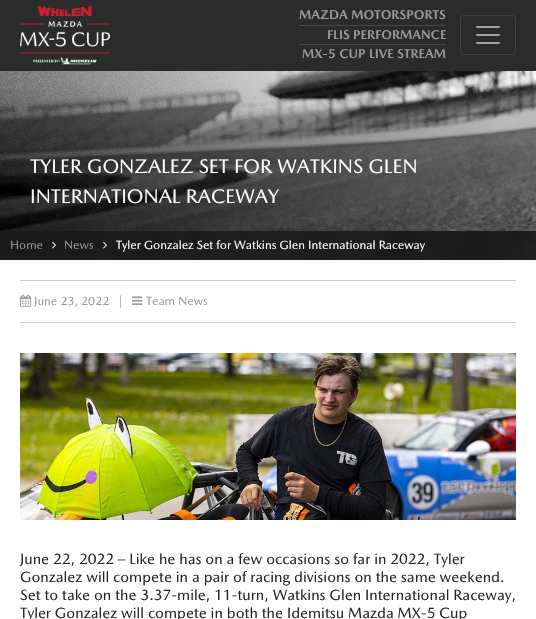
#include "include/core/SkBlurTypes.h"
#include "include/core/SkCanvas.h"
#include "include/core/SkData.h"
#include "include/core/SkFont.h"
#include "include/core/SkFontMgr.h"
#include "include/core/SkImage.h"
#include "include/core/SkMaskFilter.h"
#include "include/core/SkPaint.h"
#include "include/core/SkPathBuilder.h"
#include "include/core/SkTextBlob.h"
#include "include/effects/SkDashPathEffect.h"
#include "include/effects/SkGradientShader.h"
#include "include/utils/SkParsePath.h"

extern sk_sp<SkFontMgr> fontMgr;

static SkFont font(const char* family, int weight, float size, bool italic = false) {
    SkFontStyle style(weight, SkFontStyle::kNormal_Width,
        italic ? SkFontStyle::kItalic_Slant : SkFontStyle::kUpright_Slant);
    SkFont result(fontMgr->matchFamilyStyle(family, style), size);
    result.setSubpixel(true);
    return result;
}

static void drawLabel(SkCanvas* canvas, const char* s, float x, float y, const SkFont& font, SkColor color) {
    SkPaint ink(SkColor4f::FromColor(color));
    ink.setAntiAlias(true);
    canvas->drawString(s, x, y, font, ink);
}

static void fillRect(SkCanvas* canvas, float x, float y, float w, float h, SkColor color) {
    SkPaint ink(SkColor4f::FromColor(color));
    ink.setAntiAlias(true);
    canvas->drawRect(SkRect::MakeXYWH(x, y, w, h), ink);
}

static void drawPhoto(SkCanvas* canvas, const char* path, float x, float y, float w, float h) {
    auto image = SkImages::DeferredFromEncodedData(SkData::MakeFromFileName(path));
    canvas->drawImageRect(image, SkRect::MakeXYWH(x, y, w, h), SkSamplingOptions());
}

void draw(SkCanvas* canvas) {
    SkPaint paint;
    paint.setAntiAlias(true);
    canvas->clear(0xFFFFFFFF);
    drawPhoto(canvas, "assets/img1.png", 0, 231, 536, 29);
    fillRect(canvas, 0, 0, 536, 71, 0xFF2B2B2B);
    paint.setStroke(true);
    paint.setStrokeWidth(1);
    paint.setColor(0xFF404040);
    canvas->drawRoundRect(SkRect::MakeXYWH(460.5f, 15.5f, 55, 39), 3.5f, 3.5f, paint);
    drawPhoto(canvas, "assets/img2.png", 476, 26, 24, 18);
    drawPhoto(canvas, "assets/img3.png", 20, 5, 90, 60);
    SkFont font1 = font("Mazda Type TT", 700, 13);
    drawLabel(canvas, "MAZDA MOTORSPORTS", 299, 19, font1, 0xFF999999);
    fillRect(canvas, 299, 25, 147, 1, 0xFF474747);
    drawLabel(canvas, "FLIS PERFORMANCE", 327, 39, font1, 0xFF999999);
    fillRect(canvas, 299, 44, 147, 1, 0xFF474747);
    drawLabel(canvas, "MX-5 CUP LIVE STREAM", 302, 58, font1, 0xFF999999);
    fillRect(canvas, 0, 231, 536, 29, 0x80282828);
    drawPhoto(canvas, "assets/img4.png", 0, 71, 536, 160);
    SkFont font2 = font("Mazda Type TT", 400, 20);
    drawLabel(canvas, "TYLER GONZALEZ SET FOR WATKINS GLEN", 30, 173, font2, 0xFFFFFFFF);
    drawLabel(canvas, "INTERNATIONAL RACEWAY", 30, 203, font2, 0xFFFFFFFF);
    SkFont font3 = font("Mazda Type TT", 400, 12);
    drawLabel(canvas, "Home", 10, 249, font3, 0xFF999999);
    drawPhoto(canvas, "assets/img5.png", 52, 241, 4, 8);
    drawLabel(canvas, "News", 64, 249, font3, 0xFF999999);
    drawPhoto(canvas, "assets/img6.png", 103, 241, 4, 8);
    drawLabel(canvas, "Tyler Gonzalez Set for Watkins Glen International Raceway", 116, 249, font3, 0xFFFFFFFF);
    fillRect(canvas, 20, 280, 496, 1, 0xFFCCCCCC);
    fillRect(canvas, 20, 322, 496, 1, 0xFFCCCCCC);
    drawPhoto(canvas, "assets/img7.png", 20, 294, 12, 13);
    drawLabel(canvas, "June 23, 2022", 34, 305, font3, 0xFF999999);
    drawLabel(canvas, "|", 119, 305, font3, 0xFF999999);
    drawPhoto(canvas, "assets/img8.png", 132, 296, 11, 9);
    drawLabel(canvas, "Team News", 146, 305, font3, 0xFF999999);
    drawPhoto(canvas, "assets/img9.png", 20, 353, 496, 167);
    SkFont font4 = font("Mazda Type TT", 400, 15);
    drawLabel(canvas, "June 22, 2022 – Like he has on a few occasions so far in 2022, Tyler", 20, 564, font4, 0xFF212529);
    drawLabel(canvas, "Gonzalez will compete in a pair of racing divisions on the same weekend.", 20, 582, font4, 0xFF212529);
    drawLabel(canvas, "Set to take on the 3.37-mile, 11-turn, Watkins Glen International Raceway,", 20, 600, font4, 0xFF212529);
    drawLabel(canvas, "Tyler Gonzalez will compete in both the Idemitsu Mazda MX-5 Cup", 20, 618, font4, 0xFF212529);
}
